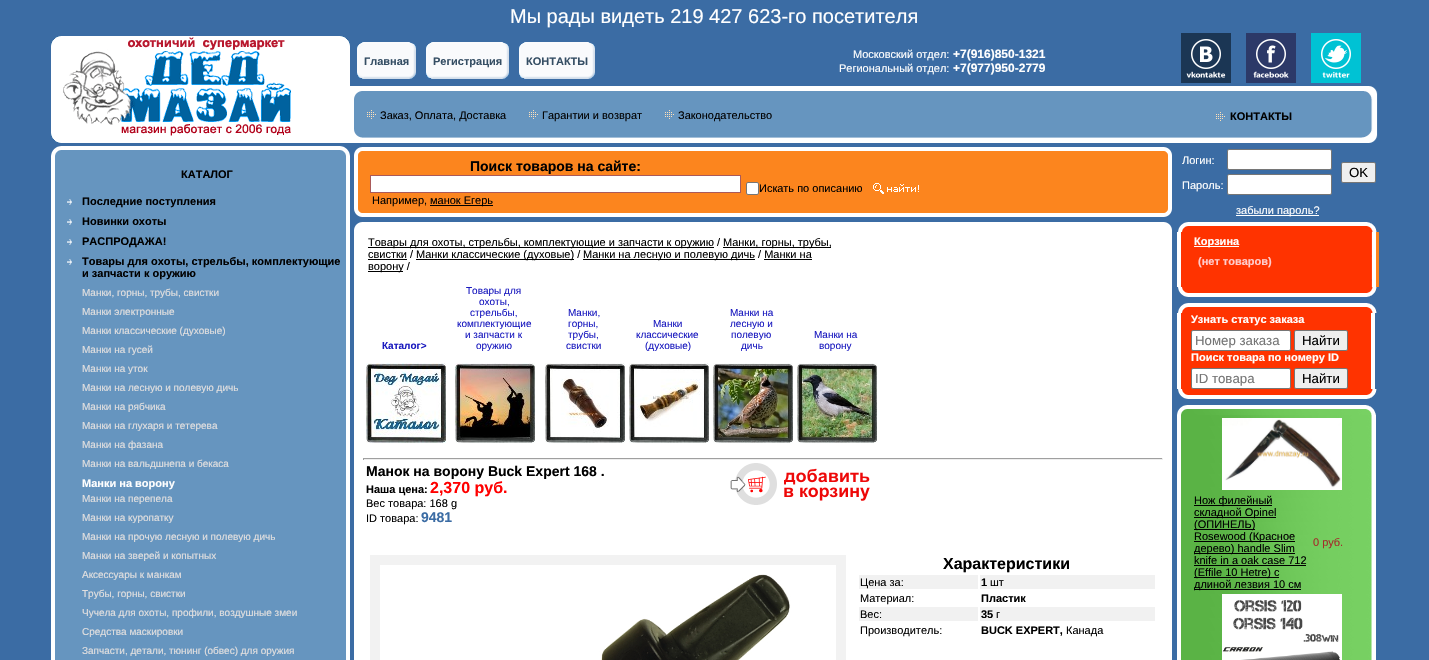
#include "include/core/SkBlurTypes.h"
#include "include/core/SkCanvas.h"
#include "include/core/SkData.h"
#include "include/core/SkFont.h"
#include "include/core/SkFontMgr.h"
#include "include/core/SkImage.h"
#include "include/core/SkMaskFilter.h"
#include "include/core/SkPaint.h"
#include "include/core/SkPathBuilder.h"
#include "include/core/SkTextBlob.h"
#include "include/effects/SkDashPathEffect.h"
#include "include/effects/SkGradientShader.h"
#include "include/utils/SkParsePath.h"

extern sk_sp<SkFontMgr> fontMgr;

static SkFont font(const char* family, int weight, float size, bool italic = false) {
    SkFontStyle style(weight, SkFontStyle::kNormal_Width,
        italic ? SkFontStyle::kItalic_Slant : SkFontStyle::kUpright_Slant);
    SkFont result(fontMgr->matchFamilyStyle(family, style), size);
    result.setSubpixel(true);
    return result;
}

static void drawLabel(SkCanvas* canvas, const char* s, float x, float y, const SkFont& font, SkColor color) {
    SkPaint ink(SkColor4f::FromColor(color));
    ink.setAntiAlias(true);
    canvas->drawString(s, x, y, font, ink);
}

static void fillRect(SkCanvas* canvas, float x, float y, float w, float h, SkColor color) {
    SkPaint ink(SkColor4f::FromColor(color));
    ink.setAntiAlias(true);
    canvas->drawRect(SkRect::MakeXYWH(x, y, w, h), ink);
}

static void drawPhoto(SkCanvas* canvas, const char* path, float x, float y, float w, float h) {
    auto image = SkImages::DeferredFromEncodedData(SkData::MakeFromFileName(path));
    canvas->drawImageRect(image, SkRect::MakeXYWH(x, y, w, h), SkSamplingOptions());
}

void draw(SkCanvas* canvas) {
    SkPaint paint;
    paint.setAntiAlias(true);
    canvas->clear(0xFF3B6CA4);
    SkFont font1 = font("Liberation Sans", 400, 20);
    drawLabel(canvas, "Мы рады видеть 219 427 623-го посетителя", 510, 23, font1, 0xFFFFFFFF);
    fillRect(canvas, 350, 86, 826, 57, 0xFFFFFFFF);
    drawPhoto(canvas, "assets/img1.png", 50, 33, 300, 110);
    drawPhoto(canvas, "assets/img2.png", 357, 42, 7, 37);
    drawPhoto(canvas, "assets/img3.png", 364, 42, 45, 37);
    SkFont font2 = font("Liberation Sans", 700, 11);
    drawLabel(canvas, "Главная", 364, 65, font2, 0xFF354E64);
    drawPhoto(canvas, "assets/img4.png", 409, 42, 7, 37);
    drawPhoto(canvas, "assets/img2.png", 426, 42, 7, 37);
    drawPhoto(canvas, "assets/img5.png", 433, 42, 69, 37);
    drawLabel(canvas, "Регистрация", 433, 65, font2, 0xFF354E64);
    drawPhoto(canvas, "assets/img4.png", 502, 42, 7, 37);
    drawPhoto(canvas, "assets/img2.png", 519, 42, 7, 37);
    drawPhoto(canvas, "assets/img6.png", 526, 42, 62, 37);
    drawLabel(canvas, "КОНТАКТЫ", 526, 65, font2, 0xFF354E64);
    drawPhoto(canvas, "assets/img4.png", 588, 42, 7, 37);
    SkFont font3 = font("Liberation Sans", 400, 11);
    drawLabel(canvas, "Московский отдел:", 853, 58, font3, 0xFFFFFFFF);
    SkFont font4 = font("Liberation Sans", 700, 12);
    drawLabel(canvas, "+7(916)850-1321", 953, 58, font4, 0xFFFFFFFF);
    drawLabel(canvas, "Региональный отдел:", 839, 72, font3, 0xFFFFFFFF);
    drawLabel(canvas, "+7(977)950-2779", 953, 72, font4, 0xFFFFFFFF);
    drawPhoto(canvas, "assets/img7.png", 1176, 33, 203, 110);
    drawPhoto(canvas, "assets/img8.png", 1181, 33, 50, 50);
    drawPhoto(canvas, "assets/img9.png", 1246, 33, 50, 50);
    drawPhoto(canvas, "assets/img10.png", 1311, 33, 50, 50);
    drawPhoto(canvas, "assets/img11.png", 1216, 112, 9, 9);
    drawLabel(canvas, "КОНТАКТЫ", 1230, 120, font2, 0xFF000000);
    drawPhoto(canvas, "assets/img12.png", 354, 91, 822, 47);
    drawPhoto(canvas, "assets/img11.png", 367, 110, 9, 9);
    drawLabel(canvas, "Заказ, Оплата, Доставка", 380, 119, font3, 0xFF000000);
    drawPhoto(canvas, "assets/img11.png", 529, 110, 9, 9);
    drawLabel(canvas, "Гарантии и возврат", 542, 119, font3, 0xFF000000);
    drawPhoto(canvas, "assets/img11.png", 665, 110, 9, 9);
    drawLabel(canvas, "Законодательство", 678, 119, font3, 0xFF000000);
    fillRect(canvas, 346, 156, 4, 504, 0xFFFFFFFF);
    drawPhoto(canvas, "assets/img13.png", 50, 143, 300, 13);
    drawPhoto(canvas, "assets/img14.png", 50, 156, 296, 36);
    drawLabel(canvas, "КАТАЛОГ", 181, 178, font2, 0xFF000000);
    drawPhoto(canvas, "assets/img15.png", 50, 192, 296, 468);
    drawPhoto(canvas, "assets/img16.png", 67, 199, 5, 6);
    drawLabel(canvas, "Последние поступления", 82, 205, font2, 0xFF000000);
    drawPhoto(canvas, "assets/img16.png", 67, 219, 5, 6);
    drawLabel(canvas, "Новинки охоты", 82, 225, font2, 0xFF000000);
    drawPhoto(canvas, "assets/img16.png", 67, 239, 5, 6);
    drawLabel(canvas, "РАСПРОДАЖА!", 82, 245, font2, 0xFF000000);
    drawPhoto(canvas, "assets/img16.png", 67, 259, 5, 6);
    drawLabel(canvas, "Товары для охоты, стрельбы, комплектующие", 82, 265, font2, 0xFF000000);
    drawLabel(canvas, "и запчасти к оружию", 82, 277, font2, 0xFF000000);
    SkFont font5 = font("Liberation Sans", 400, 10);
    drawLabel(canvas, "Манки, горны, трубы, свистки", 82, 296, font5, 0xFFE1DFDF);
    drawLabel(canvas, "Манки электронные", 82, 315, font5, 0xFFE1DFDF);
    drawLabel(canvas, "Манки классические (духовые)", 82, 334, font5, 0xFFE1DFDF);
    drawLabel(canvas, "Манки на гусей", 82, 353, font5, 0xFFE1DFDF);
    drawLabel(canvas, "Манки на уток", 82, 372, font5, 0xFFE1DFDF);
    drawLabel(canvas, "Манки на лесную и полевую дичь", 82, 391, font5, 0xFFE1DFDF);
    drawLabel(canvas, "Манки на рябчика", 82, 410, font5, 0xFFE1DFDF);
    drawLabel(canvas, "Манки на глухаря и тетерева", 82, 429, font5, 0xFFE1DFDF);
    drawLabel(canvas, "Манки на фазана", 82, 448, font5, 0xFFE1DFDF);
    drawLabel(canvas, "Манки на вальдшнепа и бекаса", 82, 467, font5, 0xFFE1DFDF);
    drawLabel(canvas, "Манки на ворону", 82, 487, font2, 0xFFFFFFFF);
    drawLabel(canvas, "Манки на перепела", 82, 502, font5, 0xFFE1DFDF);
    drawLabel(canvas, "Манки на куропатку", 82, 521, font5, 0xFFE1DFDF);
    drawLabel(canvas, "Манки на прочую лесную и полевую дичь", 82, 540, font5, 0xFFE1DFDF);
    drawLabel(canvas, "Манки на зверей и копытных", 82, 559, font5, 0xFFE1DFDF);
    drawLabel(canvas, "Аксессуары к манкам", 82, 578, font5, 0xFFE1DFDF);
    drawLabel(canvas, "Трубы, горны, свистки", 82, 597, font5, 0xFFE1DFDF);
    drawLabel(canvas, "Чучела для охоты, профили, воздушные змеи", 82, 616, font5, 0xFFE1DFDF);
    drawLabel(canvas, "Средства маскировки", 82, 635, font5, 0xFFE1DFDF);
    drawLabel(canvas, "Запчасти, детали, тюнинг (обвес) для оружия", 82, 654, font5, 0xFFE1DFDF);
    fillRect(canvas, 354, 147, 818, 513, 0xFFFFFFFF);
    drawPhoto(canvas, "assets/img17.png", 354, 147, 9, 70);
    fillRect(canvas, 363, 151, 800, 62, 0xFFFC851E);
    SkFont font6 = font("Liberation Sans", 700, 14);
    drawLabel(canvas, "Поиск товаров на сайте:", 470, 171, font6, 0xFF000000);
    paint.setColor(0xFFFFFFFF);
    canvas->drawRect(SkRect::MakeXYWH(370.5f, 175.5f, 370, 17), paint);
    paint.setStroke(true);
    paint.setStrokeWidth(1);
    paint.setColor(0xFFAA5A5A);
    canvas->drawRect(SkRect::MakeXYWH(370.5f, 175.5f, 370, 17), paint);
    drawLabel(canvas, "Например,", 372, 204, font3, 0xFF000000);
    fillRect(canvas, 430, 205, 63, 1, 0xFF000000);
    drawLabel(canvas, "манок Егерь", 430, 204, font3, 0xFF000000);
    paint.setStroke(false);
    paint.setColor(0xFFFFFFFF);
    canvas->drawRoundRect(SkRect::MakeXYWH(746.5f, 182.5f, 12, 12), 1.5f, 1.5f, paint);
    paint.setStroke(true);
    paint.setColor(0xFF767676);
    canvas->drawRoundRect(SkRect::MakeXYWH(746.5f, 182.5f, 12, 12), 1.5f, 1.5f, paint);
    drawLabel(canvas, "Искать по описанию", 759, 192, font3, 0xFF000000);
    drawPhoto(canvas, "assets/img18.png", 873, 183, 46, 11);
    drawPhoto(canvas, "assets/img19.png", 1163, 147, 9, 70);
    fillRect(canvas, 354, 217, 818, 5, 0xFF3B6CA4);
    drawPhoto(canvas, "assets/img20.png", 354, 222, 8, 8);
    drawPhoto(canvas, "assets/img21.png", 1164, 222, 8, 8);
    fillRect(canvas, 368, 247, 346, 1, 0xFF000000);
    drawLabel(canvas, "Товары для охоты, стрельбы, комплектующие и запчасти к оружию /", 368, 246, font3, 0xFF000000);
    fillRect(canvas, 723, 247, 108, 1, 0xFF000000);
    drawLabel(canvas, "Манки, горны, трубы,", 723, 246, font3, 0xFF000000);
    drawLabel(canvas, "свистки /", 368, 258, font3, 0xFF000000);
    fillRect(canvas, 368, 259, 39, 1, 0xFF000000);
    fillRect(canvas, 416, 259, 158, 1, 0xFF000000);
    drawLabel(canvas, "Манки классические (духовые) /", 416, 258, font3, 0xFF000000);
    fillRect(canvas, 583, 259, 172, 1, 0xFF000000);
    drawLabel(canvas, "Манки на лесную и полевую дичь / Манки на", 583, 258, font3, 0xFF000000);
    fillRect(canvas, 368, 271, 35, 1, 0xFF000000);
    drawLabel(canvas, "ворону /", 368, 270, font3, 0xFF000000);
    fillRect(canvas, 764, 259, 48, 1, 0xFF000000);
    SkFont font7 = font("Liberation Sans", 700, 10);
    drawLabel(canvas, "Каталог>", 382, 349, font7, 0xFF1A1ABF);
    drawLabel(canvas, "Товары для", 466, 294, font5, 0xFF1A1ABF);
    drawLabel(canvas, "охоты,", 479, 305, font5, 0xFF1A1ABF);
    drawLabel(canvas, "стрельбы,", 470, 316, font5, 0xFF1A1ABF);
    drawLabel(canvas, "комплектующие", 457, 327, font5, 0xFF1A1ABF);
    drawLabel(canvas, "и запчасти к", 465, 338, font5, 0xFF1A1ABF);
    drawLabel(canvas, "оружию", 476, 349, font5, 0xFF1A1ABF);
    drawLabel(canvas, "Манки,", 568, 316, font5, 0xFF1A1ABF);
    drawLabel(canvas, "горны,", 568, 327, font5, 0xFF1A1ABF);
    drawLabel(canvas, "трубы,", 568, 338, font5, 0xFF1A1ABF);
    drawLabel(canvas, "свистки", 566, 349, font5, 0xFF1A1ABF);
    drawLabel(canvas, "Манки", 653, 327, font5, 0xFF1A1ABF);
    drawLabel(canvas, "классические", 636, 338, font5, 0xFF1A1ABF);
    drawLabel(canvas, "(духовые)", 645, 349, font5, 0xFF1A1ABF);
    drawLabel(canvas, "Манки на", 730, 316, font5, 0xFF1A1ABF);
    drawLabel(canvas, "лесную и", 730, 327, font5, 0xFF1A1ABF);
    drawLabel(canvas, "полевую", 731, 338, font5, 0xFF1A1ABF);
    drawLabel(canvas, "дичь", 741, 349, font5, 0xFF1A1ABF);
    drawLabel(canvas, "Манки на", 814, 338, font5, 0xFF1A1ABF);
    drawLabel(canvas, "ворону", 819, 349, font5, 0xFF1A1ABF);
    drawPhoto(canvas, "assets/img22.png", 366, 363, 80, 80);
    drawPhoto(canvas, "assets/img23.png", 455, 363, 80, 80);
    drawPhoto(canvas, "assets/img24.png", 545, 363, 80, 80);
    drawPhoto(canvas, "assets/img25.png", 629, 363, 80, 80);
    drawPhoto(canvas, "assets/img26.png", 713, 363, 80, 80);
    drawPhoto(canvas, "assets/img27.png", 797, 363, 80, 80);
    fillRect(canvas, 363, 458, 800, 1, 0xFF9F9F9F);
    fillRect(canvas, 1162, 458, 1, 2, 0xFFEEEEEE);
    fillRect(canvas, 363, 459, 800, 1, 0xFFEEEEEE);
    fillRect(canvas, 363, 458, 1, 2, 0xFF9F9F9F);
    drawLabel(canvas, "Манок на ворону Buck Expert 168 .", 366, 476, font6, 0xFF000000);
    drawLabel(canvas, "Наша цена:", 366, 493, font2, 0xFF000000);
    SkFont font8 = font("Liberation Sans", 700, 16);
    drawLabel(canvas, "2,370 руб.", 430, 493, font8, 0xFFFF0000);
    drawLabel(canvas, "Вес товара: 168 g", 366, 507, font3, 0xFF000000);
    drawLabel(canvas, "ID товара:", 366, 522, font3, 0xFF000000);
    drawLabel(canvas, "9481", 421, 522, font6, 0xFF3B6CA4);
    drawPhoto(canvas, "assets/img28.png", 730, 463, 140, 42);
    fillRect(canvas, 370, 555, 476, 105, 0xFFF2F2F2);
    drawPhoto(canvas, "assets/img29.png", 380, 565, 456, 95);
    drawLabel(canvas, "Характеристики", 943, 569, font8, 0xFF000000);
    fillRect(canvas, 859, 575, 119, 14, 0xFFF1F1F1);
    drawLabel(canvas, "Цена за:", 860, 586, font3, 0xFF000000);
    fillRect(canvas, 980, 575, 175, 14, 0xFFF1F1F1);
    drawLabel(canvas, "1", 981, 586, font2, 0xFF000000);
    drawLabel(canvas, "шт", 990, 586, font3, 0xFF000000);
    drawLabel(canvas, "Материал:", 860, 602, font3, 0xFF000000);
    drawLabel(canvas, "Пластик", 981, 602, font2, 0xFF000000);
    fillRect(canvas, 859, 607, 119, 14, 0xFFF1F1F1);
    drawLabel(canvas, "Вес:", 860, 618, font3, 0xFF000000);
    fillRect(canvas, 980, 607, 175, 14, 0xFFF1F1F1);
    drawLabel(canvas, "35", 981, 618, font2, 0xFF000000);
    drawLabel(canvas, "г", 996, 618, font3, 0xFF000000);
    drawLabel(canvas, "Производитель:", 860, 634, font3, 0xFF000000);
    drawLabel(canvas, "BUCK EXPERT,", 981, 634, font2, 0xFF000000);
    drawLabel(canvas, "Канада", 1066, 634, font3, 0xFF000000);
    drawLabel(canvas, "Логин:", 1182, 164, font3, 0xFFFFFFFF);
    paint.setStroke(false);
    paint.setColor(0xFFFFFFFF);
    canvas->drawRoundRect(SkRect::MakeXYWH(1227.5f, 149.5f, 104, 20), 1.5f, 1.5f, paint);
    paint.setStroke(true);
    paint.setColor(0xFF767676);
    canvas->drawRoundRect(SkRect::MakeXYWH(1227.5f, 149.5f, 104, 20), 1.5f, 1.5f, paint);
    drawLabel(canvas, "Пароль:", 1182, 189, font3, 0xFFFFFFFF);
    paint.setStroke(false);
    paint.setColor(0xFFFFFFFF);
    canvas->drawRoundRect(SkRect::MakeXYWH(1227.5f, 174.5f, 104, 20), 1.5f, 1.5f, paint);
    paint.setStroke(true);
    paint.setColor(0xFF767676);
    canvas->drawRoundRect(SkRect::MakeXYWH(1227.5f, 174.5f, 104, 20), 1.5f, 1.5f, paint);
    paint.setStroke(false);
    paint.setColor(0xFFEFEFEF);
    canvas->drawRoundRect(SkRect::MakeXYWH(1341.5f, 162.5f, 34, 20), 1.5f, 1.5f, paint);
    paint.setStroke(true);
    paint.setColor(0xFF767676);
    canvas->drawRoundRect(SkRect::MakeXYWH(1341.5f, 162.5f, 34, 20), 1.5f, 1.5f, paint);
    SkFont font9 = font("Liberation Sans", 400, 13.25f);
    drawLabel(canvas, "OK", 1349, 177, font9, 0xFF000000);
    fillRect(canvas, 1236, 215, 83, 1, 0xFFFFFFFF);
    drawLabel(canvas, "забыли пароль?", 1236, 214, font3, 0xFFFFFFFF);
    drawPhoto(canvas, "assets/img30.png", 1178, 222, 199, 10);
    drawPhoto(canvas, "assets/img31.png", 1176, 232, 203, 55);
    fillRect(canvas, 1194, 246, 45, 1, 0xFFFFFFFF);
    drawLabel(canvas, "Корзина", 1194, 245, font2, 0xFFFFFFFF);
    drawLabel(canvas, "(нет товаров)", 1198, 265, font2, 0xFFFFCCCC);
    drawPhoto(canvas, "assets/img32.png", 1178, 287, 199, 10);
    drawPhoto(canvas, "assets/img30.png", 1178, 303, 199, 10);
    drawPhoto(canvas, "assets/img33.png", 1177, 313, 198, 38);
    drawLabel(canvas, "Узнать статус заказа", 1191, 323, font2, 0xFFFFFFFF);
    paint.setStroke(false);
    paint.setColor(0xFFFFFFFF);
    canvas->drawRoundRect(SkRect::MakeXYWH(1191.5f, 330.5f, 99, 20), 1.5f, 1.5f, paint);
    paint.setStroke(true);
    paint.setColor(0xFF767676);
    canvas->drawRoundRect(SkRect::MakeXYWH(1191.5f, 330.5f, 99, 20), 1.5f, 1.5f, paint);
    drawLabel(canvas, "Номер заказа", 1195, 345, font9, 0xFF757575);
    paint.setStroke(false);
    paint.setColor(0xFFEFEFEF);
    canvas->drawRoundRect(SkRect::MakeXYWH(1294.5f, 330.5f, 53, 20), 1.5f, 1.5f, paint);
    paint.setStroke(true);
    paint.setColor(0xFF767676);
    canvas->drawRoundRect(SkRect::MakeXYWH(1294.5f, 330.5f, 53, 20), 1.5f, 1.5f, paint);
    drawLabel(canvas, "Найти", 1302, 345, font9, 0xFF000000);
    drawPhoto(canvas, "assets/img33.png", 1177, 351, 198, 38);
    drawLabel(canvas, "Поиск товара по номеру ID", 1191, 361, font2, 0xFFFFFFFF);
    paint.setStroke(false);
    paint.setColor(0xFFFFFFFF);
    canvas->drawRoundRect(SkRect::MakeXYWH(1191.5f, 368.5f, 99, 20), 1.5f, 1.5f, paint);
    paint.setStroke(true);
    paint.setColor(0xFF767676);
    canvas->drawRoundRect(SkRect::MakeXYWH(1191.5f, 368.5f, 99, 20), 1.5f, 1.5f, paint);
    drawLabel(canvas, "ID товара", 1195, 383, font9, 0xFF757575);
    paint.setStroke(false);
    paint.setColor(0xFFEFEFEF);
    canvas->drawRoundRect(SkRect::MakeXYWH(1294.5f, 368.5f, 53, 20), 1.5f, 1.5f, paint);
    paint.setStroke(true);
    paint.setColor(0xFF767676);
    canvas->drawRoundRect(SkRect::MakeXYWH(1294.5f, 368.5f, 53, 20), 1.5f, 1.5f, paint);
    drawLabel(canvas, "Найти", 1302, 383, font9, 0xFF000000);
    drawPhoto(canvas, "assets/img32.png", 1178, 389, 199, 10);
    drawPhoto(canvas, "assets/img34.png", 1177, 405, 199, 10);
    drawPhoto(canvas, "assets/img35.png", 1177, 415, 199, 245);
    drawPhoto(canvas, "assets/img36.png", 1222, 418, 120, 72);
    fillRect(canvas, 1194, 505, 78, 1, 0xFF000000);
    drawLabel(canvas, "Нож филейный", 1194, 504, font3, 0xFF000000);
    fillRect(canvas, 1194, 517, 82, 1, 0xFF000000);
    drawLabel(canvas, "складной Opinel", 1194, 516, font3, 0xFF000000);
    fillRect(canvas, 1194, 529, 61, 1, 0xFF000000);
    drawLabel(canvas, "(ОПИНЕЛЬ)", 1194, 528, font3, 0xFF000000);
    fillRect(canvas, 1194, 541, 101, 1, 0xFF000000);
    drawLabel(canvas, "Rosewood (Красное", 1194, 540, font3, 0xFF000000);
    fillRect(canvas, 1194, 553, 101, 1, 0xFF000000);
    drawLabel(canvas, "дерево) handle Slim", 1194, 552, font3, 0xFF000000);
    drawLabel(canvas, "knife in a oak case 712", 1194, 564, font3, 0xFF000000);
    fillRect(canvas, 1194, 565, 112, 1, 0xFF000000);
    fillRect(canvas, 1194, 577, 85, 1, 0xFF000000);
    drawLabel(canvas, "(Effile 10 Hetre) с", 1194, 576, font3, 0xFF000000);
    fillRect(canvas, 1194, 589, 107, 1, 0xFF000000);
    drawLabel(canvas, "длиной лезвия 10 см", 1194, 588, font3, 0xFF000000);
    drawLabel(canvas, "0 руб.", 1313, 546, font3, 0xFFA52A2A);
    drawPhoto(canvas, "assets/img37.png", 1222, 594, 120, 66);
}
